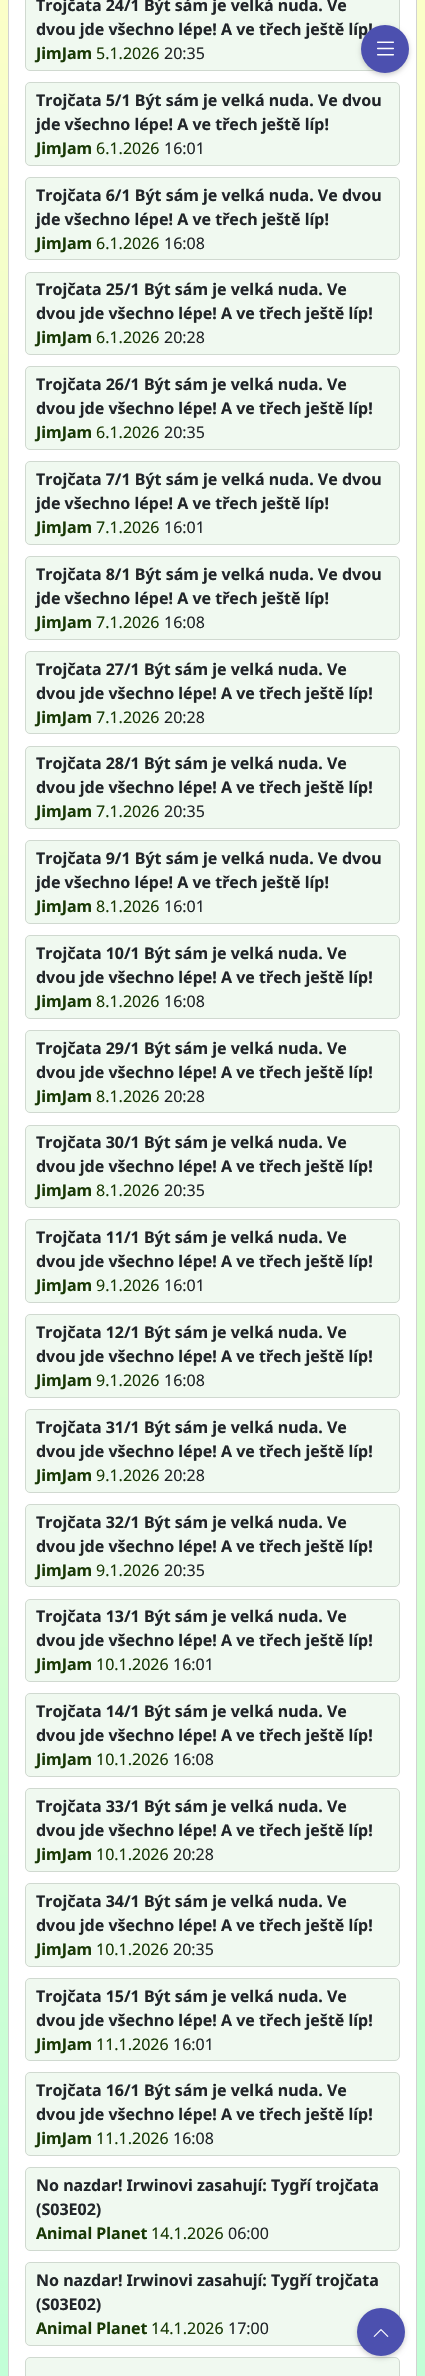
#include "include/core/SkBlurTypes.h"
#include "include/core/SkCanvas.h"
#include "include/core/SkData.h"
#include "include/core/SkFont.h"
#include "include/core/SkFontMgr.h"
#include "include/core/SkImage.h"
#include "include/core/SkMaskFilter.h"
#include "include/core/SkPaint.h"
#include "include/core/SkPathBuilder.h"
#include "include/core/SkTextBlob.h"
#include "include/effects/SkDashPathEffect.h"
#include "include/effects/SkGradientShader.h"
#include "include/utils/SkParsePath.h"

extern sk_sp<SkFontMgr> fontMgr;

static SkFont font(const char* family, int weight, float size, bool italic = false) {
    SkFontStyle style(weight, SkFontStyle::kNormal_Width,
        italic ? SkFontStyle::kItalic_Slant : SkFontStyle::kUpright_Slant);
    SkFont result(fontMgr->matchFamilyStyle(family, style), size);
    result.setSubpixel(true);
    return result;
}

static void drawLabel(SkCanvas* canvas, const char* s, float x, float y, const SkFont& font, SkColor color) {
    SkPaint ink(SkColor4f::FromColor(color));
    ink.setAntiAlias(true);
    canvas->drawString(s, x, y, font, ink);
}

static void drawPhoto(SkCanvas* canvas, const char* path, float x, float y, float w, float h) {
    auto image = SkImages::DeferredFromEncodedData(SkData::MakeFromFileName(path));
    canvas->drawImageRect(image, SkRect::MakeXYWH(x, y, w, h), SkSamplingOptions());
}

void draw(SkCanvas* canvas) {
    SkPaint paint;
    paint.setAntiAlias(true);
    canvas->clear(0xFFFFFFFF);
    {
        const SkColor colors[] = {0xFFFBFFC8, 0xFFC2FFD7};
        const float stops[] = {0, 1};
        const SkPoint ends[] = {{212, 0}, {213, 2376}};
        paint.setShader(SkGradientShader::MakeLinear(ends, colors, stops, 2, SkTileMode::kClamp));
        paint.setAlpha(255);
    }
    canvas->drawRect(SkRect::MakeXYWH(0, 0, 425, 2376), paint);
    paint.setShader(nullptr);
    paint.setColor(0xFFFFFFFF);
    canvas->drawRect(SkRect::MakeXYWH(8.5f, -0.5f, 408, 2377), paint);
    paint.setStroke(true);
    paint.setStrokeWidth(1);
    paint.setColor(0xFFD2D2D2);
    canvas->drawRect(SkRect::MakeXYWH(8.5f, -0.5f, 408, 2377), paint);
    paint.setStroke(false);
    paint.setColor(0xFFF0F9F0);
    canvas->drawRoundRect(SkRect::MakeXYWH(25.5f, -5.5f, 374, 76), 4.5f, 4.5f, paint);
    paint.setStroke(true);
    paint.setColor(0xFFD0D9D0);
    canvas->drawRoundRect(SkRect::MakeXYWH(25.5f, -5.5f, 374, 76), 4.5f, 4.5f, paint);
    SkFont font1 = font("Noto Sans", 700, 16);
    drawLabel(canvas, "Trojčata 24/1 Být sám je velká nuda. Ve", 36, 11, font1, 0xFF212529);
    drawLabel(canvas, "dvou jde všechno lépe! A ve třech ještě líp!", 36, 35, font1, 0xFF212529);
    drawLabel(canvas, "JimJam", 36, 59, font1, 0xFF193906);
    SkFont font2 = font("Noto Sans", 400, 16);
    drawLabel(canvas, "5.1.2026", 96, 59, font2, 0xFF193906);
    drawLabel(canvas, "20:35", 164, 59, font2, 0xFF212529);
    paint.setStroke(false);
    paint.setColor(0xFFF0F9F0);
    canvas->drawRoundRect(SkRect::MakeXYWH(25.5f, 82.5f, 374, 83), 4.5f, 4.5f, paint);
    paint.setStroke(true);
    paint.setColor(0xFFD0D9D0);
    canvas->drawRoundRect(SkRect::MakeXYWH(25.5f, 82.5f, 374, 83), 4.5f, 4.5f, paint);
    drawLabel(canvas, "Trojčata 5/1 Být sám je velká nuda. Ve dvou", 36, 106, font1, 0xFF212529);
    drawLabel(canvas, "jde všechno lépe! A ve třech ještě líp!", 36, 130, font1, 0xFF212529);
    drawLabel(canvas, "JimJam", 36, 154, font1, 0xFF193906);
    drawLabel(canvas, "6.1.2026", 96, 154, font2, 0xFF193906);
    drawLabel(canvas, "16:01", 164, 154, font2, 0xFF212529);
    paint.setStroke(false);
    paint.setColor(0xFFF0F9F0);
    canvas->drawRoundRect(SkRect::MakeXYWH(25.5f, 177.5f, 374, 82), 4.5f, 4.5f, paint);
    paint.setStroke(true);
    paint.setColor(0xFFD0D9D0);
    canvas->drawRoundRect(SkRect::MakeXYWH(25.5f, 177.5f, 374, 82), 4.5f, 4.5f, paint);
    drawLabel(canvas, "Trojčata 6/1 Být sám je velká nuda. Ve dvou", 36, 201, font1, 0xFF212529);
    drawLabel(canvas, "jde všechno lépe! A ve třech ještě líp!", 36, 225, font1, 0xFF212529);
    drawLabel(canvas, "JimJam", 36, 249, font1, 0xFF193906);
    drawLabel(canvas, "6.1.2026", 96, 249, font2, 0xFF193906);
    drawLabel(canvas, "16:08", 164, 249, font2, 0xFF212529);
    paint.setStroke(false);
    paint.setColor(0xFFF0F9F0);
    canvas->drawRoundRect(SkRect::MakeXYWH(25.5f, 272.5f, 374, 82), 4.5f, 4.5f, paint);
    paint.setStroke(true);
    paint.setColor(0xFFD0D9D0);
    canvas->drawRoundRect(SkRect::MakeXYWH(25.5f, 272.5f, 374, 82), 4.5f, 4.5f, paint);
    drawLabel(canvas, "Trojčata 25/1 Být sám je velká nuda. Ve", 36, 295, font1, 0xFF212529);
    drawLabel(canvas, "dvou jde všechno lépe! A ve třech ještě líp!", 36, 319, font1, 0xFF212529);
    drawLabel(canvas, "JimJam", 36, 343, font1, 0xFF193906);
    drawLabel(canvas, "6.1.2026", 96, 343, font2, 0xFF193906);
    drawLabel(canvas, "20:28", 164, 343, font2, 0xFF212529);
    paint.setStroke(false);
    paint.setColor(0xFFF0F9F0);
    canvas->drawRoundRect(SkRect::MakeXYWH(25.5f, 366.5f, 374, 83), 4.5f, 4.5f, paint);
    paint.setStroke(true);
    paint.setColor(0xFFD0D9D0);
    canvas->drawRoundRect(SkRect::MakeXYWH(25.5f, 366.5f, 374, 83), 4.5f, 4.5f, paint);
    drawLabel(canvas, "Trojčata 26/1 Být sám je velká nuda. Ve", 36, 390, font1, 0xFF212529);
    drawLabel(canvas, "dvou jde všechno lépe! A ve třech ještě líp!", 36, 414, font1, 0xFF212529);
    drawLabel(canvas, "JimJam", 36, 438, font1, 0xFF193906);
    drawLabel(canvas, "6.1.2026", 96, 438, font2, 0xFF193906);
    drawLabel(canvas, "20:35", 164, 438, font2, 0xFF212529);
    paint.setStroke(false);
    paint.setColor(0xFFF0F9F0);
    canvas->drawRoundRect(SkRect::MakeXYWH(25.5f, 461.5f, 374, 83), 4.5f, 4.5f, paint);
    paint.setStroke(true);
    paint.setColor(0xFFD0D9D0);
    canvas->drawRoundRect(SkRect::MakeXYWH(25.5f, 461.5f, 374, 83), 4.5f, 4.5f, paint);
    drawLabel(canvas, "Trojčata 7/1 Být sám je velká nuda. Ve dvou", 36, 485, font1, 0xFF212529);
    drawLabel(canvas, "jde všechno lépe! A ve třech ještě líp!", 36, 509, font1, 0xFF212529);
    drawLabel(canvas, "JimJam", 36, 533, font1, 0xFF193906);
    drawLabel(canvas, "7.1.2026", 96, 533, font2, 0xFF193906);
    drawLabel(canvas, "16:01", 164, 533, font2, 0xFF212529);
    paint.setStroke(false);
    paint.setColor(0xFFF0F9F0);
    canvas->drawRoundRect(SkRect::MakeXYWH(25.5f, 556.5f, 374, 83), 4.5f, 4.5f, paint);
    paint.setStroke(true);
    paint.setColor(0xFFD0D9D0);
    canvas->drawRoundRect(SkRect::MakeXYWH(25.5f, 556.5f, 374, 83), 4.5f, 4.5f, paint);
    drawLabel(canvas, "Trojčata 8/1 Být sám je velká nuda. Ve dvou", 36, 580, font1, 0xFF212529);
    drawLabel(canvas, "jde všechno lépe! A ve třech ještě líp!", 36, 604, font1, 0xFF212529);
    drawLabel(canvas, "JimJam", 36, 628, font1, 0xFF193906);
    drawLabel(canvas, "7.1.2026", 96, 628, font2, 0xFF193906);
    drawLabel(canvas, "16:08", 164, 628, font2, 0xFF212529);
    paint.setStroke(false);
    paint.setColor(0xFFF0F9F0);
    canvas->drawRoundRect(SkRect::MakeXYWH(25.5f, 651.5f, 374, 82), 4.5f, 4.5f, paint);
    paint.setStroke(true);
    paint.setColor(0xFFD0D9D0);
    canvas->drawRoundRect(SkRect::MakeXYWH(25.5f, 651.5f, 374, 82), 4.5f, 4.5f, paint);
    drawLabel(canvas, "Trojčata 27/1 Být sám je velká nuda. Ve", 36, 675, font1, 0xFF212529);
    drawLabel(canvas, "dvou jde všechno lépe! A ve třech ještě líp!", 36, 699, font1, 0xFF212529);
    drawLabel(canvas, "JimJam", 36, 723, font1, 0xFF193906);
    drawLabel(canvas, "7.1.2026", 96, 723, font2, 0xFF193906);
    drawLabel(canvas, "20:28", 164, 723, font2, 0xFF212529);
    paint.setStroke(false);
    paint.setColor(0xFFF0F9F0);
    canvas->drawRoundRect(SkRect::MakeXYWH(25.5f, 746.5f, 374, 82), 4.5f, 4.5f, paint);
    paint.setStroke(true);
    paint.setColor(0xFFD0D9D0);
    canvas->drawRoundRect(SkRect::MakeXYWH(25.5f, 746.5f, 374, 82), 4.5f, 4.5f, paint);
    drawLabel(canvas, "Trojčata 28/1 Být sám je velká nuda. Ve", 36, 769, font1, 0xFF212529);
    drawLabel(canvas, "dvou jde všechno lépe! A ve třech ještě líp!", 36, 793, font1, 0xFF212529);
    drawLabel(canvas, "JimJam", 36, 817, font1, 0xFF193906);
    drawLabel(canvas, "7.1.2026", 96, 817, font2, 0xFF193906);
    drawLabel(canvas, "20:35", 164, 817, font2, 0xFF212529);
    paint.setStroke(false);
    paint.setColor(0xFFF0F9F0);
    canvas->drawRoundRect(SkRect::MakeXYWH(25.5f, 840.5f, 374, 83), 4.5f, 4.5f, paint);
    paint.setStroke(true);
    paint.setColor(0xFFD0D9D0);
    canvas->drawRoundRect(SkRect::MakeXYWH(25.5f, 840.5f, 374, 83), 4.5f, 4.5f, paint);
    drawLabel(canvas, "Trojčata 9/1 Být sám je velká nuda. Ve dvou", 36, 864, font1, 0xFF212529);
    drawLabel(canvas, "jde všechno lépe! A ve třech ještě líp!", 36, 888, font1, 0xFF212529);
    drawLabel(canvas, "JimJam", 36, 912, font1, 0xFF193906);
    drawLabel(canvas, "8.1.2026", 96, 912, font2, 0xFF193906);
    drawLabel(canvas, "16:01", 164, 912, font2, 0xFF212529);
    paint.setStroke(false);
    paint.setColor(0xFFF0F9F0);
    canvas->drawRoundRect(SkRect::MakeXYWH(25.5f, 935.5f, 374, 83), 4.5f, 4.5f, paint);
    paint.setStroke(true);
    paint.setColor(0xFFD0D9D0);
    canvas->drawRoundRect(SkRect::MakeXYWH(25.5f, 935.5f, 374, 83), 4.5f, 4.5f, paint);
    drawLabel(canvas, "Trojčata 10/1 Být sám je velká nuda. Ve", 36, 959, font1, 0xFF212529);
    drawLabel(canvas, "dvou jde všechno lépe! A ve třech ještě líp!", 36, 983, font1, 0xFF212529);
    drawLabel(canvas, "JimJam", 36, 1007, font1, 0xFF193906);
    drawLabel(canvas, "8.1.2026", 96, 1007, font2, 0xFF193906);
    drawLabel(canvas, "16:08", 164, 1007, font2, 0xFF212529);
    paint.setStroke(false);
    paint.setColor(0xFFF0F9F0);
    canvas->drawRoundRect(SkRect::MakeXYWH(25.5f, 1030.5f, 374, 82), 4.5f, 4.5f, paint);
    paint.setStroke(true);
    paint.setColor(0xFFD0D9D0);
    canvas->drawRoundRect(SkRect::MakeXYWH(25.5f, 1030.5f, 374, 82), 4.5f, 4.5f, paint);
    drawLabel(canvas, "Trojčata 29/1 Být sám je velká nuda. Ve", 36, 1054, font1, 0xFF212529);
    drawLabel(canvas, "dvou jde všechno lépe! A ve třech ještě líp!", 36, 1078, font1, 0xFF212529);
    drawLabel(canvas, "JimJam", 36, 1102, font1, 0xFF193906);
    drawLabel(canvas, "8.1.2026", 96, 1102, font2, 0xFF193906);
    drawLabel(canvas, "20:28", 164, 1102, font2, 0xFF212529);
    paint.setStroke(false);
    paint.setColor(0xFFF0F9F0);
    canvas->drawRoundRect(SkRect::MakeXYWH(25.5f, 1125.5f, 374, 82), 4.5f, 4.5f, paint);
    paint.setStroke(true);
    paint.setColor(0xFFD0D9D0);
    canvas->drawRoundRect(SkRect::MakeXYWH(25.5f, 1125.5f, 374, 82), 4.5f, 4.5f, paint);
    drawLabel(canvas, "Trojčata 30/1 Být sám je velká nuda. Ve", 36, 1148, font1, 0xFF212529);
    drawLabel(canvas, "dvou jde všechno lépe! A ve třech ještě líp!", 36, 1172, font1, 0xFF212529);
    drawLabel(canvas, "JimJam", 36, 1196, font1, 0xFF193906);
    drawLabel(canvas, "8.1.2026", 96, 1196, font2, 0xFF193906);
    drawLabel(canvas, "20:35", 164, 1196, font2, 0xFF212529);
    paint.setStroke(false);
    paint.setColor(0xFFF0F9F0);
    canvas->drawRoundRect(SkRect::MakeXYWH(25.5f, 1219.5f, 374, 83), 4.5f, 4.5f, paint);
    paint.setStroke(true);
    paint.setColor(0xFFD0D9D0);
    canvas->drawRoundRect(SkRect::MakeXYWH(25.5f, 1219.5f, 374, 83), 4.5f, 4.5f, paint);
    drawLabel(canvas, "Trojčata 11/1 Být sám je velká nuda. Ve", 36, 1243, font1, 0xFF212529);
    drawLabel(canvas, "dvou jde všechno lépe! A ve třech ještě líp!", 36, 1267, font1, 0xFF212529);
    drawLabel(canvas, "JimJam", 36, 1291, font1, 0xFF193906);
    drawLabel(canvas, "9.1.2026", 96, 1291, font2, 0xFF193906);
    drawLabel(canvas, "16:01", 164, 1291, font2, 0xFF212529);
    paint.setStroke(false);
    paint.setColor(0xFFF0F9F0);
    canvas->drawRoundRect(SkRect::MakeXYWH(25.5f, 1314.5f, 374, 83), 4.5f, 4.5f, paint);
    paint.setStroke(true);
    paint.setColor(0xFFD0D9D0);
    canvas->drawRoundRect(SkRect::MakeXYWH(25.5f, 1314.5f, 374, 83), 4.5f, 4.5f, paint);
    drawLabel(canvas, "Trojčata 12/1 Být sám je velká nuda. Ve", 36, 1338, font1, 0xFF212529);
    drawLabel(canvas, "dvou jde všechno lépe! A ve třech ještě líp!", 36, 1362, font1, 0xFF212529);
    drawLabel(canvas, "JimJam", 36, 1386, font1, 0xFF193906);
    drawLabel(canvas, "9.1.2026", 96, 1386, font2, 0xFF193906);
    drawLabel(canvas, "16:08", 164, 1386, font2, 0xFF212529);
    paint.setStroke(false);
    paint.setColor(0xFFF0F9F0);
    canvas->drawRoundRect(SkRect::MakeXYWH(25.5f, 1409.5f, 374, 83), 4.5f, 4.5f, paint);
    paint.setStroke(true);
    paint.setColor(0xFFD0D9D0);
    canvas->drawRoundRect(SkRect::MakeXYWH(25.5f, 1409.5f, 374, 83), 4.5f, 4.5f, paint);
    drawLabel(canvas, "Trojčata 31/1 Být sám je velká nuda. Ve", 36, 1433, font1, 0xFF212529);
    drawLabel(canvas, "dvou jde všechno lépe! A ve třech ještě líp!", 36, 1457, font1, 0xFF212529);
    drawLabel(canvas, "JimJam", 36, 1481, font1, 0xFF193906);
    drawLabel(canvas, "9.1.2026", 96, 1481, font2, 0xFF193906);
    drawLabel(canvas, "20:28", 164, 1481, font2, 0xFF212529);
    paint.setStroke(false);
    paint.setColor(0xFFF0F9F0);
    canvas->drawRoundRect(SkRect::MakeXYWH(25.5f, 1504.5f, 374, 82), 4.5f, 4.5f, paint);
    paint.setStroke(true);
    paint.setColor(0xFFD0D9D0);
    canvas->drawRoundRect(SkRect::MakeXYWH(25.5f, 1504.5f, 374, 82), 4.5f, 4.5f, paint);
    drawLabel(canvas, "Trojčata 32/1 Být sám je velká nuda. Ve", 36, 1528, font1, 0xFF212529);
    drawLabel(canvas, "dvou jde všechno lépe! A ve třech ještě líp!", 36, 1552, font1, 0xFF212529);
    drawLabel(canvas, "JimJam", 36, 1576, font1, 0xFF193906);
    drawLabel(canvas, "9.1.2026", 96, 1576, font2, 0xFF193906);
    drawLabel(canvas, "20:35", 164, 1576, font2, 0xFF212529);
    paint.setStroke(false);
    paint.setColor(0xFFF0F9F0);
    canvas->drawRoundRect(SkRect::MakeXYWH(25.5f, 1599.5f, 374, 82), 4.5f, 4.5f, paint);
    paint.setStroke(true);
    paint.setColor(0xFFD0D9D0);
    canvas->drawRoundRect(SkRect::MakeXYWH(25.5f, 1599.5f, 374, 82), 4.5f, 4.5f, paint);
    drawLabel(canvas, "Trojčata 13/1 Být sám je velká nuda. Ve", 36, 1622, font1, 0xFF212529);
    drawLabel(canvas, "dvou jde všechno lépe! A ve třech ještě líp!", 36, 1646, font1, 0xFF212529);
    drawLabel(canvas, "JimJam", 36, 1670, font1, 0xFF193906);
    drawLabel(canvas, "10.1.2026", 96, 1670, font2, 0xFF193906);
    drawLabel(canvas, "16:01", 173, 1670, font2, 0xFF212529);
    paint.setStroke(false);
    paint.setColor(0xFFF0F9F0);
    canvas->drawRoundRect(SkRect::MakeXYWH(25.5f, 1693.5f, 374, 83), 4.5f, 4.5f, paint);
    paint.setStroke(true);
    paint.setColor(0xFFD0D9D0);
    canvas->drawRoundRect(SkRect::MakeXYWH(25.5f, 1693.5f, 374, 83), 4.5f, 4.5f, paint);
    drawLabel(canvas, "Trojčata 14/1 Být sám je velká nuda. Ve", 36, 1717, font1, 0xFF212529);
    drawLabel(canvas, "dvou jde všechno lépe! A ve třech ještě líp!", 36, 1741, font1, 0xFF212529);
    drawLabel(canvas, "JimJam", 36, 1765, font1, 0xFF193906);
    drawLabel(canvas, "10.1.2026", 96, 1765, font2, 0xFF193906);
    drawLabel(canvas, "16:08", 173, 1765, font2, 0xFF212529);
    paint.setStroke(false);
    paint.setColor(0xFFF0F9F0);
    canvas->drawRoundRect(SkRect::MakeXYWH(25.5f, 1788.5f, 374, 83), 4.5f, 4.5f, paint);
    paint.setStroke(true);
    paint.setColor(0xFFD0D9D0);
    canvas->drawRoundRect(SkRect::MakeXYWH(25.5f, 1788.5f, 374, 83), 4.5f, 4.5f, paint);
    drawLabel(canvas, "Trojčata 33/1 Být sám je velká nuda. Ve", 36, 1812, font1, 0xFF212529);
    drawLabel(canvas, "dvou jde všechno lépe! A ve třech ještě líp!", 36, 1836, font1, 0xFF212529);
    drawLabel(canvas, "JimJam", 36, 1860, font1, 0xFF193906);
    drawLabel(canvas, "10.1.2026", 96, 1860, font2, 0xFF193906);
    drawLabel(canvas, "20:28", 173, 1860, font2, 0xFF212529);
    paint.setStroke(false);
    paint.setColor(0xFFF0F9F0);
    canvas->drawRoundRect(SkRect::MakeXYWH(25.5f, 1883.5f, 374, 83), 4.5f, 4.5f, paint);
    paint.setStroke(true);
    paint.setColor(0xFFD0D9D0);
    canvas->drawRoundRect(SkRect::MakeXYWH(25.5f, 1883.5f, 374, 83), 4.5f, 4.5f, paint);
    drawLabel(canvas, "Trojčata 34/1 Být sám je velká nuda. Ve", 36, 1907, font1, 0xFF212529);
    drawLabel(canvas, "dvou jde všechno lépe! A ve třech ještě líp!", 36, 1931, font1, 0xFF212529);
    drawLabel(canvas, "JimJam", 36, 1955, font1, 0xFF193906);
    drawLabel(canvas, "10.1.2026", 96, 1955, font2, 0xFF193906);
    drawLabel(canvas, "20:35", 173, 1955, font2, 0xFF212529);
    paint.setStroke(false);
    paint.setColor(0xFFF0F9F0);
    canvas->drawRoundRect(SkRect::MakeXYWH(25.5f, 1978.5f, 374, 82), 4.5f, 4.5f, paint);
    paint.setStroke(true);
    paint.setColor(0xFFD0D9D0);
    canvas->drawRoundRect(SkRect::MakeXYWH(25.5f, 1978.5f, 374, 82), 4.5f, 4.5f, paint);
    drawLabel(canvas, "Trojčata 15/1 Být sám je velká nuda. Ve", 36, 2002, font1, 0xFF212529);
    drawLabel(canvas, "dvou jde všechno lépe! A ve třech ještě líp!", 36, 2026, font1, 0xFF212529);
    drawLabel(canvas, "JimJam", 36, 2050, font1, 0xFF193906);
    drawLabel(canvas, "11.1.2026", 96, 2050, font2, 0xFF193906);
    drawLabel(canvas, "16:01", 173, 2050, font2, 0xFF212529);
    paint.setStroke(false);
    paint.setColor(0xFFF0F9F0);
    canvas->drawRoundRect(SkRect::MakeXYWH(25.5f, 2072.5f, 374, 83), 4.5f, 4.5f, paint);
    paint.setStroke(true);
    paint.setColor(0xFFD0D9D0);
    canvas->drawRoundRect(SkRect::MakeXYWH(25.5f, 2072.5f, 374, 83), 4.5f, 4.5f, paint);
    drawLabel(canvas, "Trojčata 16/1 Být sám je velká nuda. Ve", 36, 2096, font1, 0xFF212529);
    drawLabel(canvas, "dvou jde všechno lépe! A ve třech ještě líp!", 36, 2120, font1, 0xFF212529);
    drawLabel(canvas, "JimJam", 36, 2144, font1, 0xFF193906);
    drawLabel(canvas, "11.1.2026", 96, 2144, font2, 0xFF193906);
    drawLabel(canvas, "16:08", 173, 2144, font2, 0xFF212529);
    paint.setStroke(false);
    paint.setColor(0xFFF0F9F0);
    canvas->drawRoundRect(SkRect::MakeXYWH(25.5f, 2167.5f, 374, 83), 4.5f, 4.5f, paint);
    paint.setStroke(true);
    paint.setColor(0xFFD0D9D0);
    canvas->drawRoundRect(SkRect::MakeXYWH(25.5f, 2167.5f, 374, 83), 4.5f, 4.5f, paint);
    drawLabel(canvas, "No nazdar! Irwinovi zasahují: Tygří trojčata", 36, 2191, font1, 0xFF212529);
    drawLabel(canvas, "(S03E02)", 36, 2215, font1, 0xFF212529);
    drawLabel(canvas, "Animal Planet", 36, 2239, font1, 0xFF193906);
    drawLabel(canvas, "14.1.2026", 151, 2239, font2, 0xFF193906);
    drawLabel(canvas, "06:00", 228, 2239, font2, 0xFF212529);
    paint.setStroke(false);
    paint.setColor(0xFFF0F9F0);
    canvas->drawRoundRect(SkRect::MakeXYWH(25.5f, 2262.5f, 374, 83), 4.5f, 4.5f, paint);
    paint.setStroke(true);
    paint.setColor(0xFFD0D9D0);
    canvas->drawRoundRect(SkRect::MakeXYWH(25.5f, 2262.5f, 374, 83), 4.5f, 4.5f, paint);
    drawLabel(canvas, "No nazdar! Irwinovi zasahují: Tygří trojčata", 36, 2286, font1, 0xFF212529);
    drawLabel(canvas, "(S03E02)", 36, 2310, font1, 0xFF212529);
    drawLabel(canvas, "Animal Planet", 36, 2334, font1, 0xFF193906);
    drawLabel(canvas, "14.1.2026", 151, 2334, font2, 0xFF193906);
    drawLabel(canvas, "17:00", 228, 2334, font2, 0xFF212529);
    paint.setStroke(false);
    paint.setColor(0xFFF0F9F0);
    canvas->drawRoundRect(SkRect::MakeXYWH(25.5f, 2357.5f, 374, 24), 4.5f, 4.5f, paint);
    paint.setStroke(true);
    paint.setColor(0xFFD0D9D0);
    canvas->drawRoundRect(SkRect::MakeXYWH(25.5f, 2357.5f, 374, 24), 4.5f, 4.5f, paint);
    paint.setStroke(false);
    paint.setColor(0x33000000);
    paint.setMaskFilter(SkMaskFilter::MakeBlur(kNormal_SkBlurStyle, 2.5f));
    canvas->drawRoundRect(SkRect::MakeXYWH(361, 27, 48, 48), 24, 24, paint);
    paint.setMaskFilter(nullptr);
    paint.setColor(0xFF4C50AF);
    canvas->drawCircle(385, 49, 24, paint);
    drawPhoto(canvas, "assets/img1.png", 377, 41, 17, 15);
    paint.setColor(0x33000000);
    paint.setMaskFilter(SkMaskFilter::MakeBlur(kNormal_SkBlurStyle, 2.5f));
    canvas->drawRoundRect(SkRect::MakeXYWH(357, 2310, 48, 48), 24, 24, paint);
    paint.setMaskFilter(nullptr);
    paint.setColor(0xFF4C50AF);
    canvas->drawCircle(381, 2332, 24, paint);
    drawPhoto(canvas, "assets/img2.png", 373, 2329, 16, 8);
}
